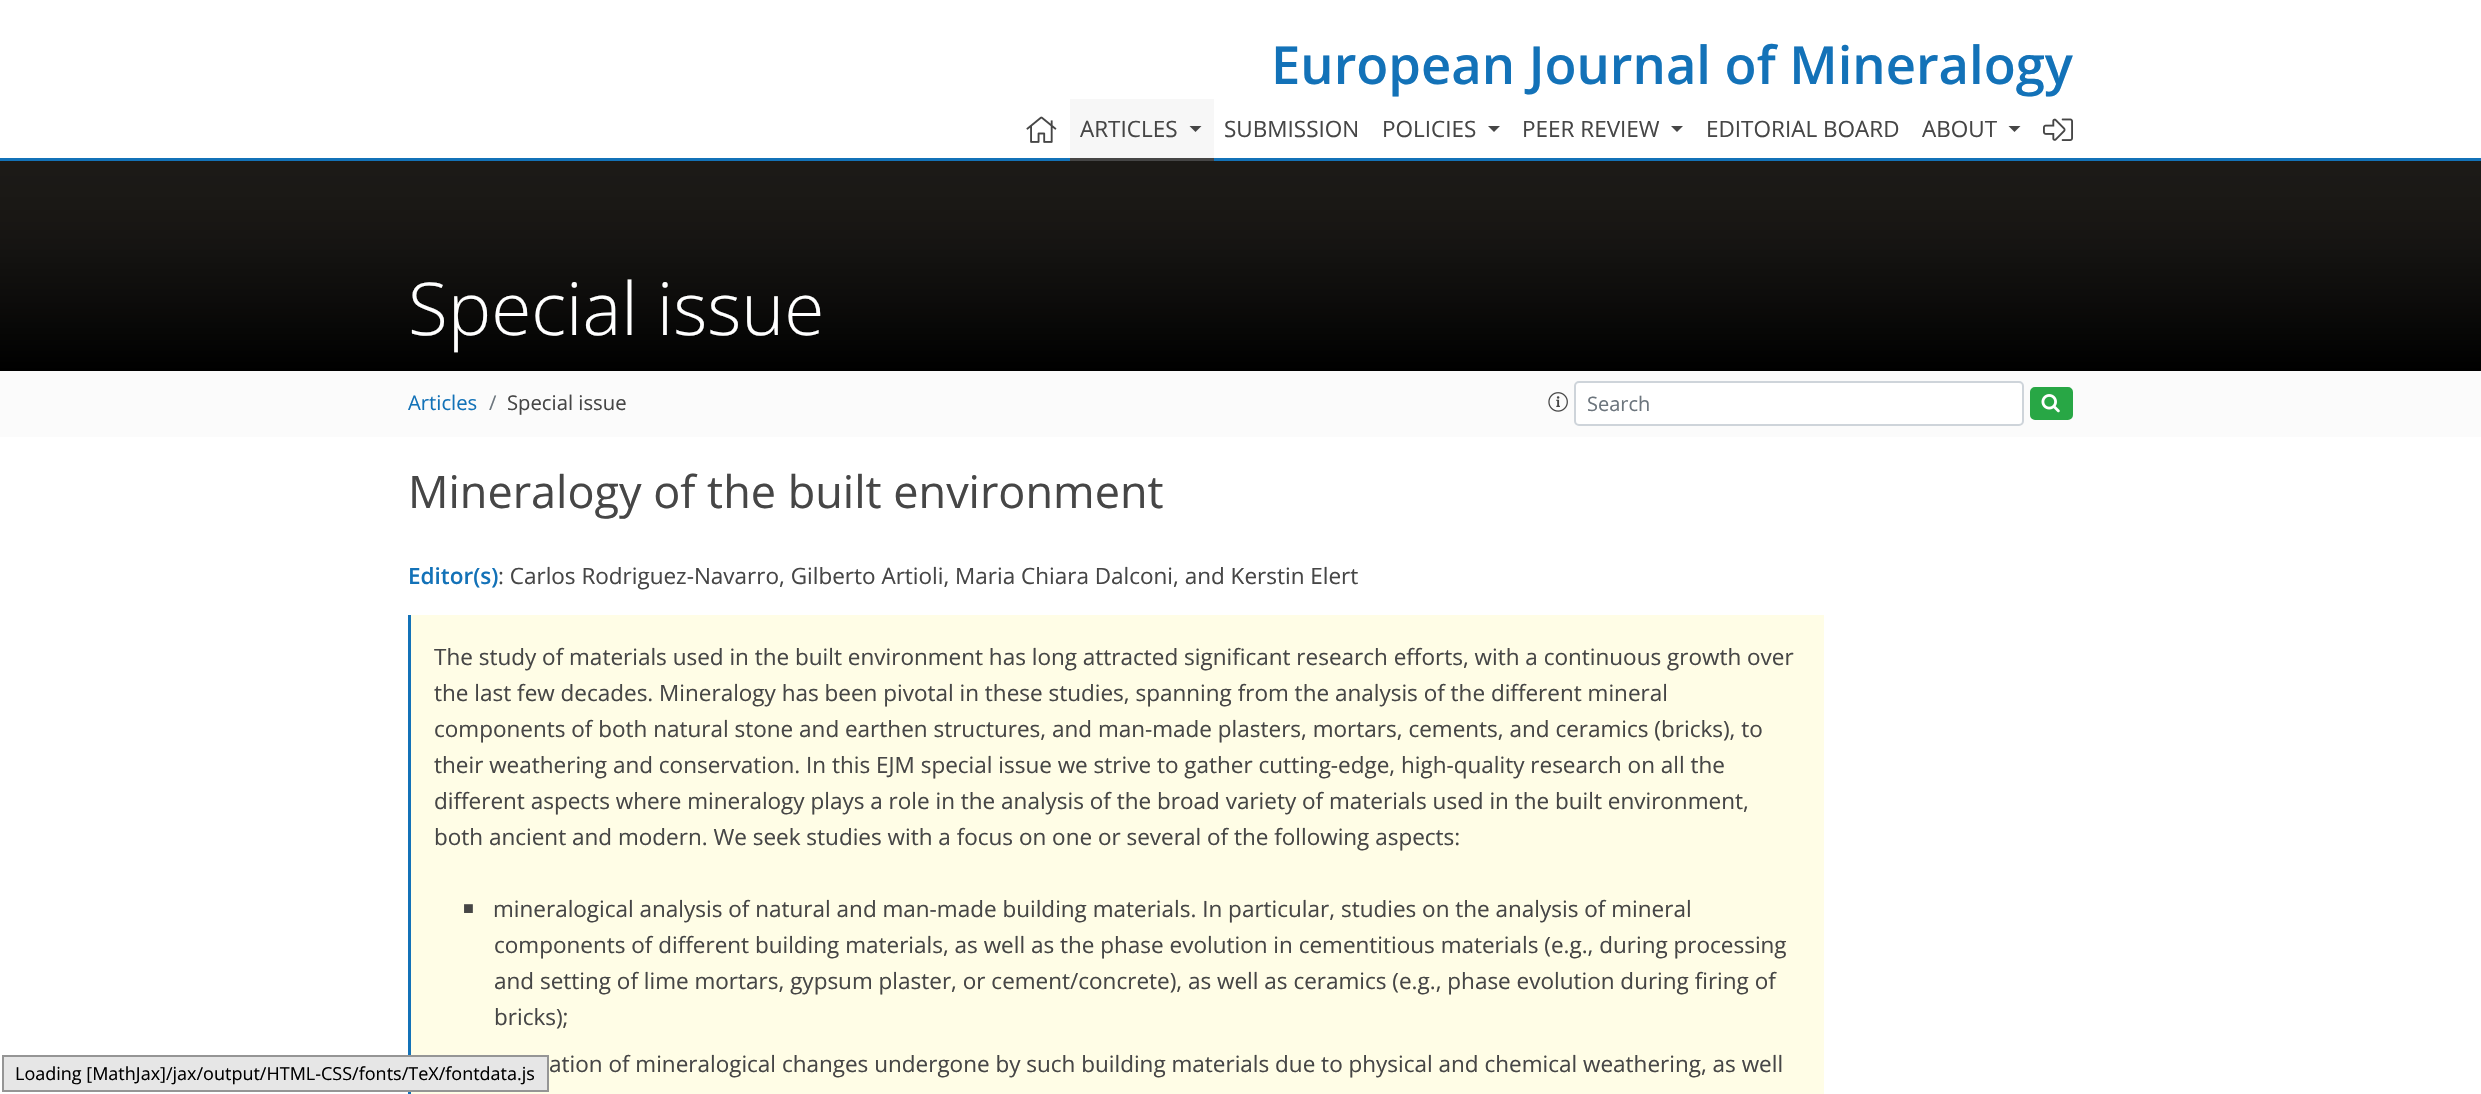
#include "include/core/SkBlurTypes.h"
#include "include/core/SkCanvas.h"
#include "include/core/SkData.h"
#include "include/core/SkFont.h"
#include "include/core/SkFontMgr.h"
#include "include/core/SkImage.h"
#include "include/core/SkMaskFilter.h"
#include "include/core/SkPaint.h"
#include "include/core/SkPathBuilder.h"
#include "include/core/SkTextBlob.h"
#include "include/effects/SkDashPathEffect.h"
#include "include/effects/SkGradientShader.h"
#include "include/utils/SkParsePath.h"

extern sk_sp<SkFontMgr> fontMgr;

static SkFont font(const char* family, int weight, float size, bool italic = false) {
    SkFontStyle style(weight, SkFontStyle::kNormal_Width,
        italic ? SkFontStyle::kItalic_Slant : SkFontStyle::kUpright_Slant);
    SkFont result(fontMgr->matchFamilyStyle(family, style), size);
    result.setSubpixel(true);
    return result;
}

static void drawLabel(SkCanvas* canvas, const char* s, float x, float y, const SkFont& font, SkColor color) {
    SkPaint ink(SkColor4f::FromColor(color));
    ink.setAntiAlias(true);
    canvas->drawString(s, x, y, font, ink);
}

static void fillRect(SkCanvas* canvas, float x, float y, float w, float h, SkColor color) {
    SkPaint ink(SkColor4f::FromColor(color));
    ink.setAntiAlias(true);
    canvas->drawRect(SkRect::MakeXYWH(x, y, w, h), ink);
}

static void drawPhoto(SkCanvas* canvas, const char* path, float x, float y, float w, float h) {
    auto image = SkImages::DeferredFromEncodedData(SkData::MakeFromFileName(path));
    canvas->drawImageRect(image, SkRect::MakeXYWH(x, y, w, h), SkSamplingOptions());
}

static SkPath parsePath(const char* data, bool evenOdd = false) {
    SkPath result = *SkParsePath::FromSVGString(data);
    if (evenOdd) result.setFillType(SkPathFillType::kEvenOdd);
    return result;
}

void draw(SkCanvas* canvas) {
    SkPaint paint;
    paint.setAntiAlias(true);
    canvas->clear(0xFFFFFFFF);
    SkFont font1 = font("Open Sans", 600, 52.5f);
    drawLabel(canvas, "European Journal of Mineralogy", 1271, 84, font1, 0xFF1372B8);
    fillRect(canvas, 0, 158, 2481, 3, 0xFF1372B8);
    drawPhoto(canvas, "assets/img1.png", 1026, 116, 31, 27);
    fillRect(canvas, 1070, 99, 144, 59, 0xFFF7F7F7);
    fillRect(canvas, 1070, 158, 144, 3, 0xFF464646);
    SkFont font2 = font("Open Sans", 400, 22.5f);
    drawLabel(canvas, "ARTICLES", 1080, 137, font2, 0xFF464646);
    paint.setColor(0xFF464646);
    canvas->drawPath(parsePath("M1189.5 126H1201.5L1195.5 132Z"), paint);
    drawLabel(canvas, "SUBMISSION", 1224, 137, font2, 0xFF464646);
    drawLabel(canvas, "POLICIES", 1382, 137, font2, 0xFF464646);
    canvas->drawPath(parsePath("M1488 126H1500L1494 132Z"), paint);
    drawLabel(canvas, "PEER REVIEW", 1522, 137, font2, 0xFF464646);
    canvas->drawPath(parsePath("M1671 126H1683L1677 132Z"), paint);
    drawLabel(canvas, "EDITORIAL BOARD", 1706, 137, font2, 0xFF464646);
    drawLabel(canvas, "ABOUT", 1922, 137, font2, 0xFF464646);
    canvas->drawPath(parsePath("M2008.5 126H2020.5L2014.5 132Z"), paint);
    drawPhoto(canvas, "assets/img2.png", 2043, 118, 30, 23);
    {
        const SkColor colors[] = {0xFF000000, 0xFF070706, 0xFF0D0C0B, 0xFF11100E, 0xFF141311, 0xFF171513, 0xFF191714, 0xFF1A1815, 0xFF1B1916, 0xFF1B1917, 0xFF1C1A17, 0xFF1C1A17};
        const float stops[] = {0, 0.19f, 0.34f, 0.47f, 0.56f, 0.65f, 0.73f, 0.8f, 0.86f, 0.91f, 0.95f, 1};
        const SkPoint ends[] = {{1241, 371}, {1241, 161}};
        paint.setShader(SkGradientShader::MakeLinear(ends, colors, stops, 12, SkTileMode::kClamp));
        paint.setAlpha(255);
    }
    canvas->drawRect(SkRect::MakeXYWH(0, 161, 2481, 210), paint);
    SkFont font3 = font("Open Sans", 300, 73);
    drawLabel(canvas, "Special issue", 408, 335, font3, 0xFFFFFFFF);
    fillRect(canvas, 0, 371, 2481, 66, 0xFFFBFBFB);
    SkFont font4 = font("Open Sans", 400, 20.25f);
    drawLabel(canvas, "Articles", 408, 410, font4, 0xFF1372B8);
    drawLabel(canvas, "/", 489, 410, font4, 0xFF6C757D);
    drawLabel(canvas, "Special issue", 507, 410, font4, 0xFF464646);
    drawPhoto(canvas, "assets/img3.png", 1548, 392, 20, 20);
    paint.setShader(nullptr);
    paint.setColor(0xFFFFFFFF);
    canvas->drawRoundRect(SkRect::MakeXYWH(1575, 382, 448, 43), 4, 4, paint);
    paint.setStroke(true);
    paint.setStrokeWidth(2);
    paint.setColor(0xFFCED4DA);
    canvas->drawRoundRect(SkRect::MakeXYWH(1575, 382, 448, 43), 4, 4, paint);
    SkFont font5 = font("Open Sans", 400, 20);
    drawLabel(canvas, "Search", 1587, 411, font5, 0xFF6C757D);
    paint.setStroke(false);
    paint.setColor(0xFF28A745);
    canvas->drawRoundRect(SkRect::MakeXYWH(2031, 388, 41, 31), 4, 4, paint);
    paint.setStroke(true);
    canvas->drawRoundRect(SkRect::MakeXYWH(2031, 388, 41, 31), 4, 4, paint);
    drawPhoto(canvas, "assets/img4.png", 2041, 394, 19, 19);
    fillRect(canvas, 411, 615, 1413, 479, 0xFFFFFDE6);
    fillRect(canvas, 408, 615, 3, 479, 0xFF1372B8);
    paint.setStroke(false);
    paint.setColor(0xFFE6E6E6);
    canvas->drawRect(SkRect::MakeXYWH(3, 1056, 545, 35), paint);
    paint.setStroke(true);
    paint.setColor(0xFF959595);
    canvas->drawRect(SkRect::MakeXYWH(3, 1056, 545, 35), paint);
    SkFont font6 = font("Open Sans", 400, 18);
    drawLabel(canvas, "Loading [MathJax]/jax/output/HTML-CSS/fonts/TeX/fontdata.js", 15, 1080, font6, 0xFF000000);
    SkFont font7 = font("Open Sans", 400, 45);
    drawLabel(canvas, "Mineralogy of the built environment", 408, 508, font7, 0xFF464646);
    SkFont font8 = font("Open Sans", 600, 22.5f);
    drawLabel(canvas, "Editor(s)", 408, 584, font8, 0xFF1372B8);
    drawLabel(canvas, ": Carlos Rodriguez-Navarro, Gilberto Artioli, Maria Chiara Dalconi, and Kerstin Elert", 498, 584, font2, 0xFF464646);
    drawLabel(canvas, "The study of materials used in the built environment has long attracted significant research efforts, with a continuous growth over", 434, 665, font2, 0xFF464646);
    drawLabel(canvas, "the last few decades. Mineralogy has been pivotal in these studies, spanning from the analysis of the different mineral", 434, 701, font2, 0xFF464646);
    drawLabel(canvas, "components of both natural stone and earthen structures, and man-made plasters, mortars, cements, and ceramics (bricks), to", 434, 737, font2, 0xFF464646);
    drawLabel(canvas, "their weathering and conservation. In this EJM special issue we strive to gather cutting-edge, high-quality research on all the", 434, 773, font2, 0xFF464646);
    drawLabel(canvas, "different aspects where mineralogy plays a role in the analysis of the broad variety of materials used in the built environment,", 434, 809, font2, 0xFF464646);
    drawLabel(canvas, "both ancient and modern. We seek studies with a focus on one or several of the following aspects:", 434, 845, font2, 0xFF464646);
    SkFont font9 = font("Liberation Sans", 400, 18);
    drawLabel(canvas, "■", 463, 914, font9, 0xFF464646);
    drawLabel(canvas, "mineralogical analysis of natural and man-made building materials. In particular, studies on the analysis of mineral", 493, 917, font2, 0xFF464646);
    drawLabel(canvas, "components of different building materials, as well as the phase evolution in cementitious materials (e.g., during processing", 494, 953, font2, 0xFF464646);
    drawLabel(canvas, "and setting of lime mortars, gypsum plaster, or cement/concrete), as well as ceramics (e.g., phase evolution during firing of", 494, 989, font2, 0xFF464646);
    drawLabel(canvas, "bricks);", 494, 1025, font2, 0xFF464646);
    drawLabel(canvas, "ation of mineralogical changes undergone by such building materials due to physical and chemical weathering, as well", 549, 1072, font2, 0xFF464646);
}
